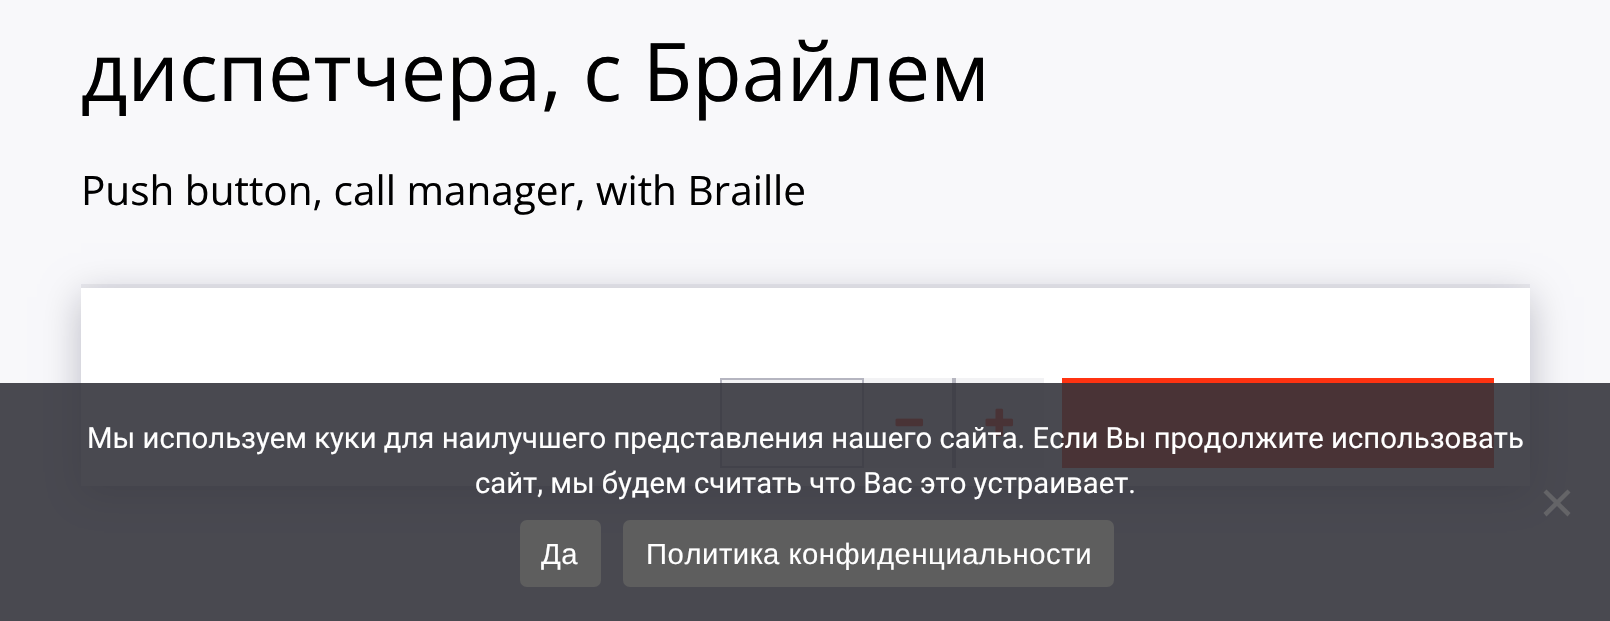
#include "include/core/SkBlurTypes.h"
#include "include/core/SkCanvas.h"
#include "include/core/SkData.h"
#include "include/core/SkFont.h"
#include "include/core/SkFontMgr.h"
#include "include/core/SkImage.h"
#include "include/core/SkMaskFilter.h"
#include "include/core/SkPaint.h"
#include "include/core/SkPathBuilder.h"
#include "include/core/SkTextBlob.h"
#include "include/effects/SkDashPathEffect.h"
#include "include/effects/SkGradientShader.h"
#include "include/utils/SkParsePath.h"

extern sk_sp<SkFontMgr> fontMgr;

static SkFont font(const char* family, int weight, float size, bool italic = false) {
    SkFontStyle style(weight, SkFontStyle::kNormal_Width,
        italic ? SkFontStyle::kItalic_Slant : SkFontStyle::kUpright_Slant);
    SkFont result(fontMgr->matchFamilyStyle(family, style), size);
    result.setSubpixel(true);
    return result;
}

static void drawLabel(SkCanvas* canvas, const char* s, float x, float y, const SkFont& font, SkColor color) {
    SkPaint ink(SkColor4f::FromColor(color));
    ink.setAntiAlias(true);
    canvas->drawString(s, x, y, font, ink);
}

static void drawTracked(SkCanvas* canvas, const char* s, float x, float y, const SkFont& font, const SkPaint& ink, float letter, float word) {
    std::vector<SkGlyphID> glyphs(font.countText(s, strlen(s), SkTextEncoding::kUTF8));
    std::vector<float> xs(glyphs.size());
    font.textToGlyphs(s, strlen(s), SkTextEncoding::kUTF8, glyphs);
    font.getXPos(glyphs, xs, x);
    float extra = 0;
    for (size_t i = 0; i < glyphs.size(); i++) {
        xs[i] += extra;
        extra += letter + word * (glyphs[i] == font.unicharToGlyph(' '));
    }
    canvas->drawTextBlob(SkTextBlob::MakeFromPosHGlyphs(glyphs, xs, y, font), 0, 0, ink);
}

static void fillRect(SkCanvas* canvas, float x, float y, float w, float h, SkColor color) {
    SkPaint ink(SkColor4f::FromColor(color));
    ink.setAntiAlias(true);
    canvas->drawRect(SkRect::MakeXYWH(x, y, w, h), ink);
}

static void fillRRect(SkCanvas* canvas, float x, float y, float w, float h, float radius, SkColor color) {
    SkPaint ink(SkColor4f::FromColor(color));
    ink.setAntiAlias(true);
    canvas->drawRoundRect(SkRect::MakeXYWH(x, y, w, h), radius, radius, ink);
}

static void drawPhoto(SkCanvas* canvas, const char* path, float x, float y, float w, float h) {
    auto image = SkImages::DeferredFromEncodedData(SkData::MakeFromFileName(path));
    canvas->drawImageRect(image, SkRect::MakeXYWH(x, y, w, h), SkSamplingOptions());
}

static SkPath parsePath(const char* data, bool evenOdd = false) {
    SkPath result = *SkParsePath::FromSVGString(data);
    if (evenOdd) result.setFillType(SkPathFillType::kEvenOdd);
    return result;
}

void draw(SkCanvas* canvas) {
    SkPaint paint;
    paint.setAntiAlias(true);
    canvas->clear(0xFFF8F8FA);
    SkFont font1 = font("Open Sans", 400, 81);
    drawLabel(canvas, "диспетчера, с Брайлем", 81, 101, font1, 0xFF000000);
    SkFont font2 = font("Open Sans", 400, 40.5f);
    drawLabel(canvas, "Push button, call manager, with Braille", 81, 205, font2, 0xFF000000);
    paint.setColor(0x40000022);
    paint.setMaskFilter(SkMaskFilter::MakeBlur(kNormal_SkBlurStyle, 18));
    canvas->drawRect(SkRect::MakeXYWH(81, 297, 1449, 198), paint);
    paint.setMaskFilter(nullptr);
    fillRect(canvas, 81, 288, 1449, 198, 0xFFFFFFFF);
    fillRect(canvas, 81, 284, 1449, 4, 0x0D000022);
    paint.setStroke(true);
    paint.setStrokeWidth(2);
    paint.setColor(0xFFBFBFC8);
    canvas->drawRect(SkRect::MakeXYWH(721, 379, 142, 88), paint);
    fillRect(canvas, 720, 378, 144, 5, 0x0D000022);
    fillRect(canvas, 864, 378, 88, 90, 0xFFF2F2F4);
    fillRect(canvas, 952, 378, 4, 90, 0xFFB6B6C0);
    drawPhoto(canvas, "assets/img1.png", 895, 418, 29, 9);
    fillRect(canvas, 956, 378, 88, 90, 0xFFF2F2F4);
    drawPhoto(canvas, "assets/img2.png", 985, 408, 29, 29);
    fillRect(canvas, 1062, 378, 432, 90, 0xFFFF3311);
    fillRect(canvas, 0, 383, 1610, 238, 0xE332323A);
    SkFont font3 = font("Roboto", 400, 29.25f);
    drawLabel(canvas, "Мы используем куки для наилучшего представления нашего сайта. Если Вы продолжите использовать", 87, 448, font3, 0xFFFFFFFF);
    drawLabel(canvas, "сайт, мы будем считать что Вас это устраивает.", 475, 493, font3, 0xFFFFFFFF);
    paint.setStroke(false);
    paint.setColor(0xFF646467);
    canvas->drawPath(parsePath("M1567.5 489.5L1570.5 492.5L1546.5 516.5L1543.5 513Z"), paint);
    canvas->drawPath(parsePath("M1543.5 492.5L1546.5 489.5L1570.5 513L1567.5 516.5Z"), paint);
    fillRRect(canvas, 520, 520, 81, 67, 7, 0xFF5E5E5E);
    SkFont font4 = font("Liberation Sans", 400, 29.25f);
    paint.setColor(0xFFFFFFFF);
    drawTracked(canvas, "Да", 541, 564, font4, paint, 0.55f, 0);
    fillRRect(canvas, 623, 520, 491, 67, 7, 0xFF5E5E5E);
    drawTracked(canvas, "Политика конфиденциальности", 646, 564, font4, paint, 0.55f, 0);
}
